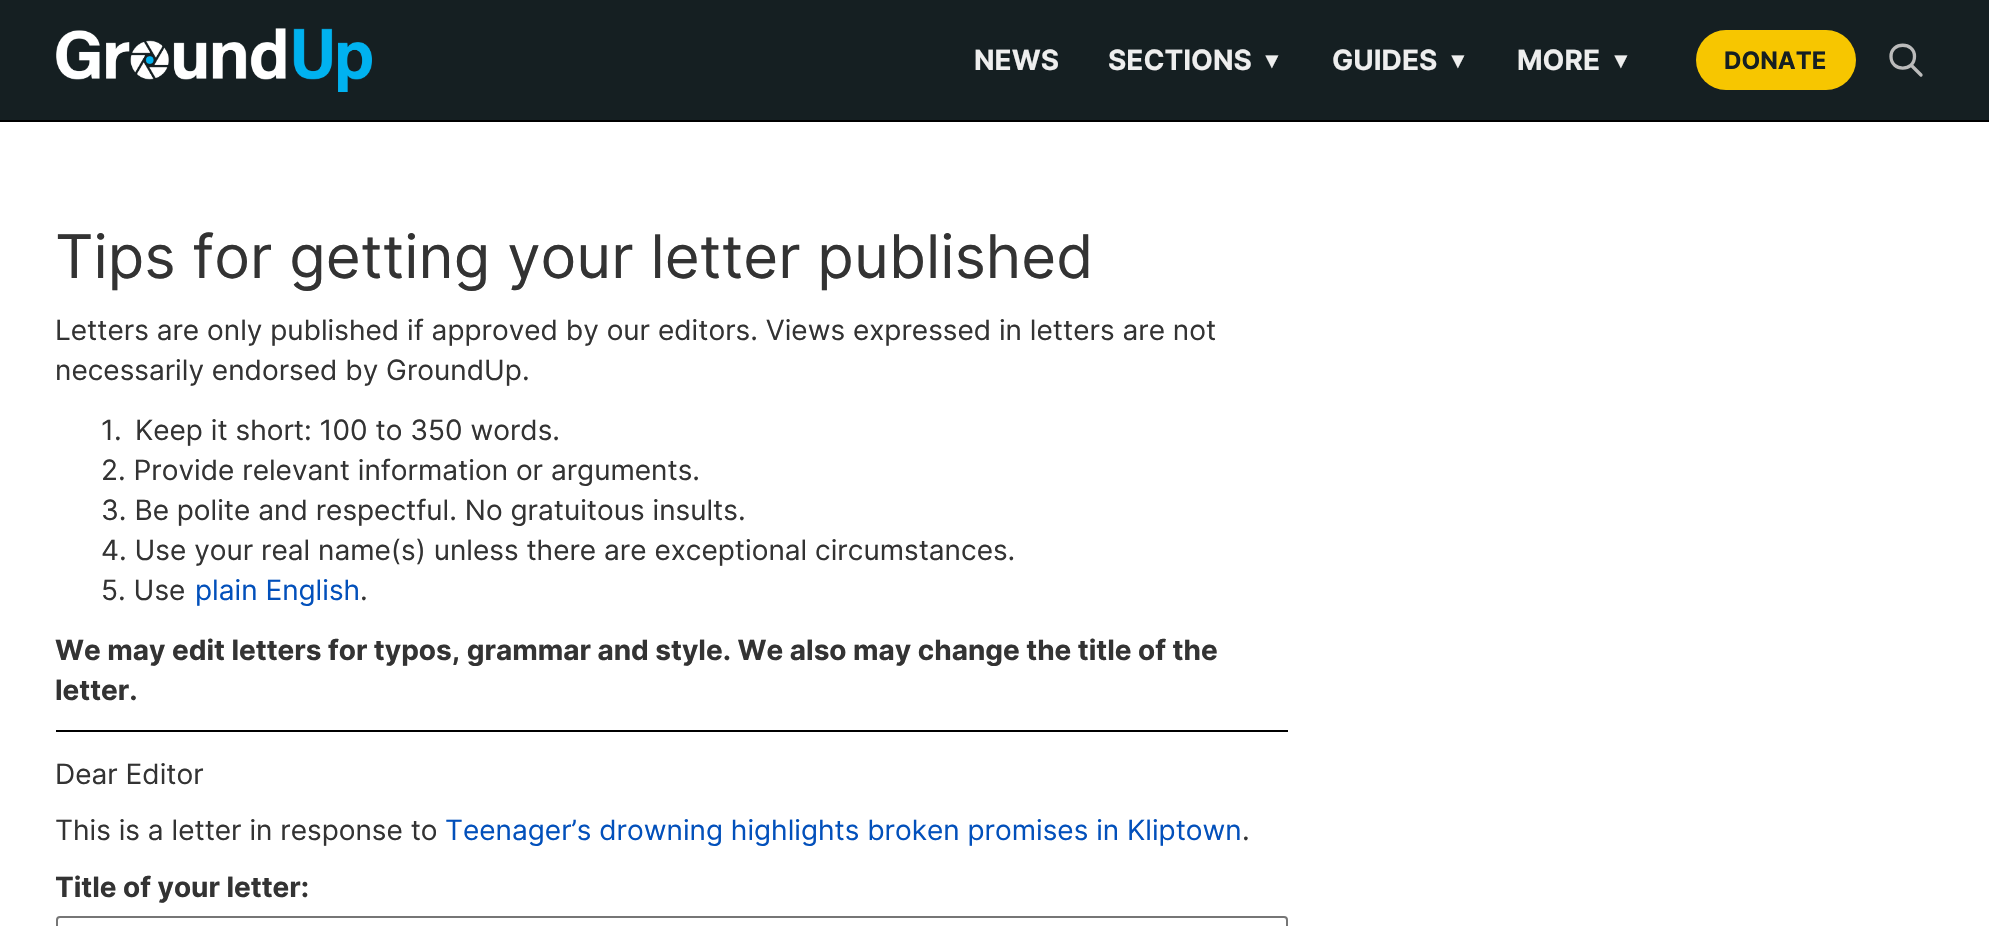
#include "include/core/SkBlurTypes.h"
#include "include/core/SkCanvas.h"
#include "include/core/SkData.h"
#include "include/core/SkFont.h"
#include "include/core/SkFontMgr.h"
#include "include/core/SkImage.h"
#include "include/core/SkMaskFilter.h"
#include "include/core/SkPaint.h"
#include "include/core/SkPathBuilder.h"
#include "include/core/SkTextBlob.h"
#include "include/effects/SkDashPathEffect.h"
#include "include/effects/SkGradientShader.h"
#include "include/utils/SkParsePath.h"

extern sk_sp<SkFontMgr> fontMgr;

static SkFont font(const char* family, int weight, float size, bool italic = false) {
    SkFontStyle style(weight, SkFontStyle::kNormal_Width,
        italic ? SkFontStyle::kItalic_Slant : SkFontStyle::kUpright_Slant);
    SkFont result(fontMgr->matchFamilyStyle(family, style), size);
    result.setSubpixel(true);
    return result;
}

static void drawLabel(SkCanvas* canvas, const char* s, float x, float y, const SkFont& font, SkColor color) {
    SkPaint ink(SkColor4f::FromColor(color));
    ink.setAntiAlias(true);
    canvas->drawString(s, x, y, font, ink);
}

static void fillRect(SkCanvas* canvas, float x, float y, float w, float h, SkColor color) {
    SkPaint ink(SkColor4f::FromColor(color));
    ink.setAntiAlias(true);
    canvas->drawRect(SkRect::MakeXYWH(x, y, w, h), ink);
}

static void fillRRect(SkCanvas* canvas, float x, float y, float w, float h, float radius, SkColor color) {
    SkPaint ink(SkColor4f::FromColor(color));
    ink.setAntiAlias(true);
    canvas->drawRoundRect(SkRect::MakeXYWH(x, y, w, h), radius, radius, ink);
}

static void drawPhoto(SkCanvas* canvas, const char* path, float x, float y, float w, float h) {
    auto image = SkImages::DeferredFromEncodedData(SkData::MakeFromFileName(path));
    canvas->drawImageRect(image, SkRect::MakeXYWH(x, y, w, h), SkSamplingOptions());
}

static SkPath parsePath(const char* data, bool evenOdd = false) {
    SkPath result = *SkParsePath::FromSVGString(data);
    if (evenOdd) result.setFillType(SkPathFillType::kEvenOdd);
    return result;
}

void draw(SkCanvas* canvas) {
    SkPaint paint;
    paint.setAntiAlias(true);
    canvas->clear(0xFFFFFFFF);
    fillRect(canvas, 0, 0, 1989, 120, 0xFF151F22);
    fillRect(canvas, 0, 120, 1989, 2, 0xFF000000);
    drawPhoto(canvas, "assets/img1.png", 56, 28, 316, 64);
    SkFont font1 = font("Inter", 700, 28);
    drawLabel(canvas, "NEWS", 974, 70, font1, 0xFFEEEEEE);
    drawLabel(canvas, "SECTIONS", 1108, 70, font1, 0xFFEEEEEE);
    SkFont font2 = font("Liberation Sans", 700, 22);
    drawLabel(canvas, "▼", 1261, 68, font2, 0xFFEEEEEE);
    drawLabel(canvas, "GUIDES", 1332, 70, font1, 0xFFEEEEEE);
    drawLabel(canvas, "▼", 1447, 68, font2, 0xFFEEEEEE);
    drawLabel(canvas, "MORE", 1517, 70, font1, 0xFFEEEEEE);
    drawLabel(canvas, "▼", 1610, 68, font2, 0xFFEEEEEE);
    fillRRect(canvas, 1696, 30, 160, 60, 30, 0xFFF7C600);
    SkFont font3 = font("Inter", 700, 24);
    drawLabel(canvas, "DONATE", 1724, 69, font3, 0xFF151F22);
    paint.setStroke(true);
    paint.setStrokeWidth(3.3f);
    paint.setStrokeCap(SkPaint::kRound_Cap);
    paint.setStrokeJoin(SkPaint::kRound_Join);
    paint.setColor(0xFFBBBBBB);
    canvas->drawPath(parsePath("M1921 75L1911 65M1914.5 56.5C1914.5 72 1891 72 1891 56.5C1891 41.5 1914.5 41.5 1914.5 56.5Z"), paint);
    fillRect(canvas, 56, 730, 1232, 2, 0xFF000000);
    SkFont font4 = font("Inter", 400, 60);
    drawLabel(canvas, "Tips for getting your letter published", 55, 278, font4, 0xFF333333);
    SkFont font5 = font("Inter", 400, 28);
    drawLabel(canvas, "Letters are only published if approved by our editors. Views expressed in letters are not", 55, 340, font5, 0xFF333333);
    drawLabel(canvas, "necessarily endorsed by GroundUp.", 55, 380, font5, 0xFF333333);
    drawLabel(canvas, "1.", 101, 440, font5, 0xFF333333);
    drawLabel(canvas, "Keep it short: 100 to 350 words.", 135, 440, font5, 0xFF333333);
    drawLabel(canvas, "2. Provide relevant information or arguments.", 101, 480, font5, 0xFF333333);
    drawLabel(canvas, "3. Be polite and respectful. No gratuitous insults.", 101, 520, font5, 0xFF333333);
    drawLabel(canvas, "4. Use your real name(s) unless there are exceptional circumstances.", 101, 560, font5, 0xFF333333);
    drawLabel(canvas, "5. Use", 101, 600, font5, 0xFF333333);
    drawLabel(canvas, "plain English", 195, 600, font5, 0xFF0250BB);
    drawLabel(canvas, ".", 360, 600, font5, 0xFF333333);
    drawLabel(canvas, "We may edit letters for typos, grammar and style. We also may change the title of the", 55, 660, font1, 0xFF333333);
    drawLabel(canvas, "letter.", 55, 700, font1, 0xFF333333);
    drawLabel(canvas, "Dear Editor", 55, 784, font5, 0xFF333333);
    drawLabel(canvas, "This is a letter in response to", 55, 840, font5, 0xFF333333);
    drawLabel(canvas, "Teenager’s drowning highlights broken promises in Kliptown", 445, 840, font5, 0xFF0250BB);
    drawLabel(canvas, ".", 1242, 840, font5, 0xFF333333);
    drawLabel(canvas, "Title of your letter:", 55, 897, font1, 0xFF333333);
    paint.setStrokeWidth(2);
    paint.setStrokeCap(SkPaint::kButt_Cap);
    paint.setStrokeJoin(SkPaint::kMiter_Join);
    paint.setColor(0xFF767676);
    canvas->drawRoundRect(SkRect::MakeXYWH(57, 917, 1230, 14), 3, 3, paint);
}
